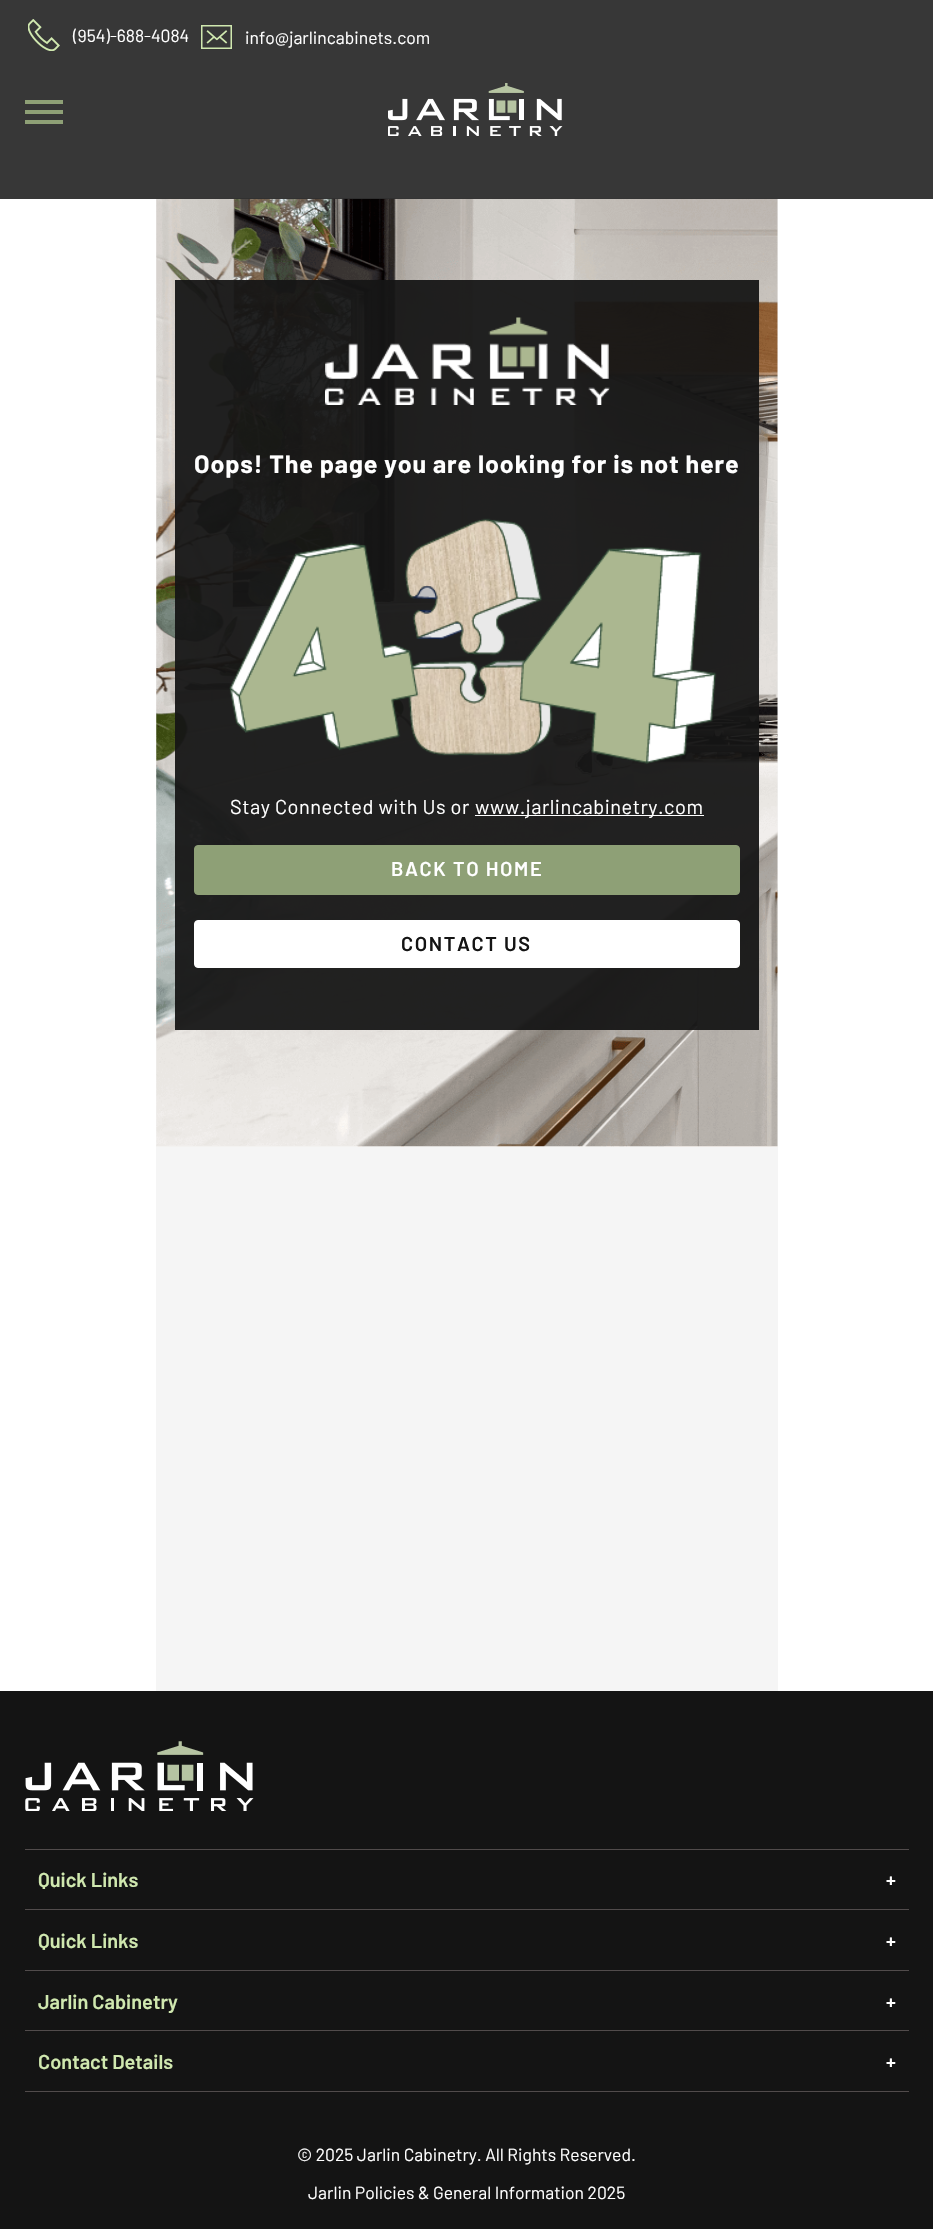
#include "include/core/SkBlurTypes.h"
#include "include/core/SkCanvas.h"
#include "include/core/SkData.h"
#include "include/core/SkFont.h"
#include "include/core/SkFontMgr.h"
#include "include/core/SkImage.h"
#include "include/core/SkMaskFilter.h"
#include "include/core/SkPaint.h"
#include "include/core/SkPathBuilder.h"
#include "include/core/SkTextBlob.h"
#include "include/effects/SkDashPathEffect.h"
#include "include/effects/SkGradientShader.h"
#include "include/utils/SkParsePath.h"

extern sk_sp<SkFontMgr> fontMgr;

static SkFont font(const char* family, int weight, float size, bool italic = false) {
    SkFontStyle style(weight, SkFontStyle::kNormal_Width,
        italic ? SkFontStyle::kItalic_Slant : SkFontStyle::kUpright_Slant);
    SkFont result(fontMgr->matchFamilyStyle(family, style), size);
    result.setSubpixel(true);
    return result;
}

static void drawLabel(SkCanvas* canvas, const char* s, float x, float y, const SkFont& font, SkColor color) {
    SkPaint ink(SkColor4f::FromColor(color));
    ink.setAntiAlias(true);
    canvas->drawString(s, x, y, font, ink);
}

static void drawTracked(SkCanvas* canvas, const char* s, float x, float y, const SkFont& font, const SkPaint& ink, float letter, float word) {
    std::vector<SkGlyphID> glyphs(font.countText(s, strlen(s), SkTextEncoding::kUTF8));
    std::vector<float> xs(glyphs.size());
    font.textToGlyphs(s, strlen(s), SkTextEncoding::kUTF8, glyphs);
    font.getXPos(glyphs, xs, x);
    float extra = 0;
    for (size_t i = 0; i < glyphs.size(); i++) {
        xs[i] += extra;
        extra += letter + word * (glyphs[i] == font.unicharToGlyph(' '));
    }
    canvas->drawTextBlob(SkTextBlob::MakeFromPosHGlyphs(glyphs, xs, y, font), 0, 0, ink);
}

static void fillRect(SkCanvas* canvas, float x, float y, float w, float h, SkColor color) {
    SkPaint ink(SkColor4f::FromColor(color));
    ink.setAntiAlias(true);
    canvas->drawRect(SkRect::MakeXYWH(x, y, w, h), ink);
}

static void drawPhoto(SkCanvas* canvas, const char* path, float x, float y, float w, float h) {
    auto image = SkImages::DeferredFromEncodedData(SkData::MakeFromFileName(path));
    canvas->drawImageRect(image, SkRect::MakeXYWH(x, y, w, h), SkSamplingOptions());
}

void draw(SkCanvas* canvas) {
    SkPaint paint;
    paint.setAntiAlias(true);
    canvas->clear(0xFFFFFFFF);
    fillRect(canvas, 156, 199, 622, 1492, 0xFFF5F5F5);
    drawPhoto(canvas, "assets/img4.png", 156, 198, 622, 949);
    fillRect(canvas, 0, 0, 933, 199, 0xD9141414);
    drawPhoto(canvas, "assets/img1.png", 28, 19, 32, 32);
    SkFont font1 = font("Barlow", 400, 17.5f);
    drawLabel(canvas, "(954)-688-4084", 73, 42, font1, 0xFFFFFFFF);
    drawPhoto(canvas, "assets/img2.png", 201, 25, 31, 24);
    drawLabel(canvas, "info@jarlincabinets.com", 245, 44, font1, 0xFFFFFFFF);
    fillRect(canvas, 25, 100, 38, 4, 0xFF8EA076);
    fillRect(canvas, 25, 110, 38, 4, 0xFF8EA076);
    fillRect(canvas, 25, 120, 38, 4, 0xFF8EA076);
    drawPhoto(canvas, "assets/img3.png", 388, 83, 175, 53);
    fillRect(canvas, 175, 280, 584, 750, 0xF0141414);
    drawPhoto(canvas, "assets/img5.png", 325, 317, 285, 88);
    SkFont font2 = font("Barlow", 700, 25);
    paint.setColor(0xFFFFFFFF);
    drawTracked(canvas, "Oops! The page you are looking for is not here", 194, 473, font2, paint, 0.9f, 0);
    drawPhoto(canvas, "assets/img6.png", 229, 518, 488, 246);
    SkFont font3 = font("Barlow", 400, 20);
    drawTracked(canvas, "Stay Connected with Us or", 230, 814, font3, paint, 0.5f, 0);
    fillRect(canvas, 475, 815, 229, 1, 0xFFFFFFFF);
    drawTracked(canvas, "www.jarlincabinetry.com", 475, 814, font3, paint, 0.5f, 0);
    paint.setColor(0xFF8EA076);
    canvas->drawRoundRect(SkRect::MakeXYWH(194.5f, 845.5f, 545, 49), 3.5f, 3.5f, paint);
    paint.setStroke(true);
    paint.setStrokeWidth(1);
    canvas->drawRoundRect(SkRect::MakeXYWH(194.5f, 845.5f, 545, 49), 3.5f, 3.5f, paint);
    SkFont font4 = font("Barlow", 600, 20);
    paint.setStroke(false);
    paint.setColor(0xFFFFFFFF);
    drawTracked(canvas, "BACK TO HOME", 391, 876, font4, paint, 1.6f, 0);
    canvas->drawRoundRect(SkRect::MakeXYWH(194.5f, 920.5f, 545, 47), 3.5f, 3.5f, paint);
    paint.setStroke(true);
    canvas->drawRoundRect(SkRect::MakeXYWH(194.5f, 920.5f, 545, 47), 3.5f, 3.5f, paint);
    paint.setStroke(false);
    paint.setColor(0xFF141414);
    drawTracked(canvas, "CONTACT US", 401, 951, font4, paint, 1.6f, 0);
    fillRect(canvas, 0, 1691, 933, 538, 0xFF141414);
    fillRect(canvas, 25, 1849, 884, 1, 0xFF514B4B);
    drawPhoto(canvas, "assets/img7.png", 25, 1741, 229, 70);
    fillRect(canvas, 25, 1909, 884, 1, 0xFF514B4B);
    drawLabel(canvas, "Quick Links", 38, 1887, font4, 0xFFD0E8AF);
    drawLabel(canvas, "+", 886, 1887, font4, 0xFFFFFFFF);
    fillRect(canvas, 25, 1970, 884, 1, 0xFF514B4B);
    drawLabel(canvas, "Quick Links", 38, 1948, font4, 0xFFD0E8AF);
    drawLabel(canvas, "+", 886, 1948, font4, 0xFFFFFFFF);
    fillRect(canvas, 25, 2030, 884, 1, 0xFF514B4B);
    drawLabel(canvas, "Jarlin Cabinetry", 38, 2009, font4, 0xFFD0E8AF);
    drawLabel(canvas, "+", 886, 2009, font4, 0xFFFFFFFF);
    fillRect(canvas, 25, 2091, 884, 1, 0xFF514B4B);
    drawLabel(canvas, "Contact Details", 38, 2069, font4, 0xFFD0E8AF);
    drawLabel(canvas, "+", 886, 2069, font4, 0xFFFFFFFF);
    drawLabel(canvas, "© 2025 Jarlin Cabinetry. All Rights Reserved.", 297, 2161, font1, 0xFFFFFFFF);
    drawLabel(canvas, "Jarlin Policies & General Information 2025", 308, 2199, font1, 0xFFFFFFFF);
}
